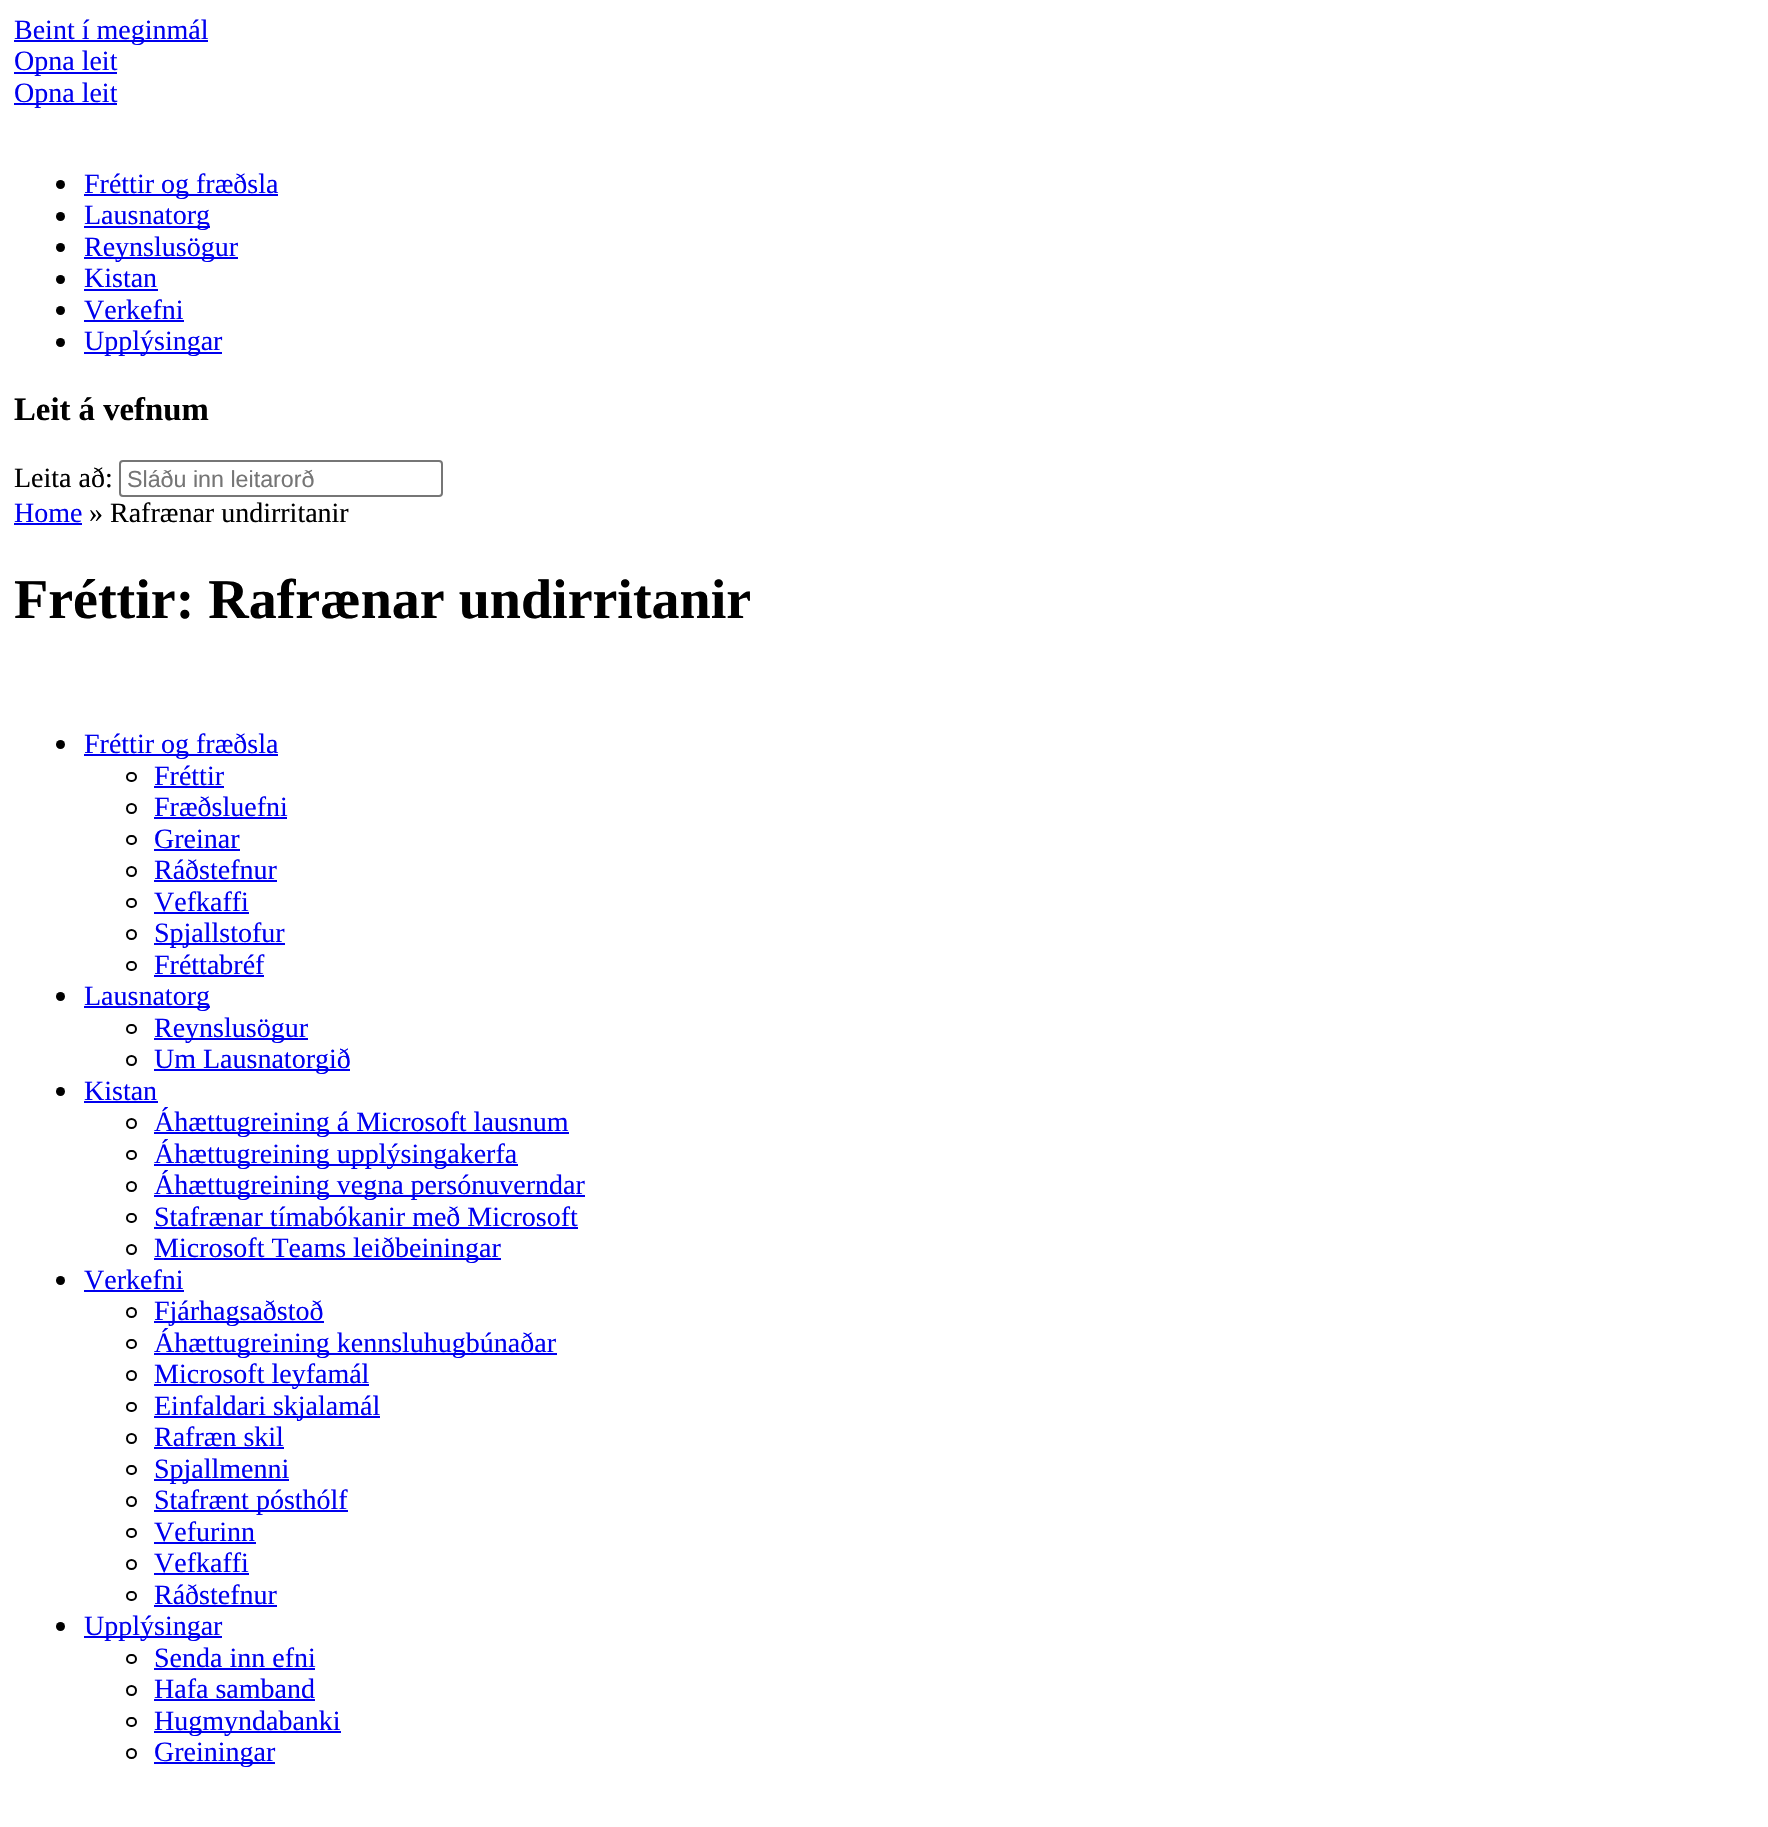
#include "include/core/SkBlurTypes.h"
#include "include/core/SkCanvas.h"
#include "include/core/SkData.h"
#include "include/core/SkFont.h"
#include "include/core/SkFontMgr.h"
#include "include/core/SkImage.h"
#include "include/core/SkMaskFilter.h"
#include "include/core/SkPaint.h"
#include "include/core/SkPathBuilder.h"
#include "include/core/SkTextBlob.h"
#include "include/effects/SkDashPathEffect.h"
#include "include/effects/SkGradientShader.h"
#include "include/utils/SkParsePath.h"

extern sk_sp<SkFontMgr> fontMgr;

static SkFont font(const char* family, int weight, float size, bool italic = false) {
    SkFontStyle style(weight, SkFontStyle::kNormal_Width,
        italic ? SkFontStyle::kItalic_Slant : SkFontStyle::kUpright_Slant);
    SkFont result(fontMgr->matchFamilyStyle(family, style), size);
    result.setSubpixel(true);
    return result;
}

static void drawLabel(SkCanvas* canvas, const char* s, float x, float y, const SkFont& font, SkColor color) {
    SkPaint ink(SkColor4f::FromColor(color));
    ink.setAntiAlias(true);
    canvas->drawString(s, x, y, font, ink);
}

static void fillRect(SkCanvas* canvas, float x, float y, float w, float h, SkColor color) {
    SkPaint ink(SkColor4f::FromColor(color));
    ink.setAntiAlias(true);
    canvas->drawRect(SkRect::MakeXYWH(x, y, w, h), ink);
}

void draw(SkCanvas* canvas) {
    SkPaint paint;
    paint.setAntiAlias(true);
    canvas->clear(0xFFFFFFFF);
    fillRect(canvas, 14, 40, 194, 2, 0xFF0000EE);
    SkFont font1 = font("Liberation Serif", 400, 28);
    drawLabel(canvas, "Beint í meginmál", 14, 39, font1, 0xFF0000EE);
    fillRect(canvas, 14, 72, 103, 2, 0xFF0000EE);
    drawLabel(canvas, "Opna leit", 14, 70, font1, 0xFF0000EE);
    fillRect(canvas, 14, 103, 103, 2, 0xFF0000EE);
    drawLabel(canvas, "Opna leit", 14, 102, font1, 0xFF0000EE);
    paint.setColor(0xFF000000);
    canvas->drawCircle(60.5f, 184.5f, 4.5f, paint);
    fillRect(canvas, 84, 194, 194, 2, 0xFF0000EE);
    drawLabel(canvas, "Fréttir og fræðsla", 84, 193, font1, 0xFF0000EE);
    canvas->drawCircle(60.5f, 216.5f, 4.5f, paint);
    fillRect(canvas, 84, 226, 126, 2, 0xFF0000EE);
    drawLabel(canvas, "Lausnatorg", 84, 224, font1, 0xFF0000EE);
    canvas->drawCircle(60.5f, 247.5f, 4.5f, paint);
    fillRect(canvas, 84, 257, 154, 2, 0xFF0000EE);
    drawLabel(canvas, "Reynslusögur", 84, 256, font1, 0xFF0000EE);
    canvas->drawCircle(60.5f, 279.5f, 4.5f, paint);
    drawLabel(canvas, "Kistan", 84, 287, font1, 0xFF0000EE);
    fillRect(canvas, 84, 289, 74, 2, 0xFF0000EE);
    canvas->drawCircle(60.5f, 310.5f, 4.5f, paint);
    drawLabel(canvas, "Verkefni", 84, 319, font1, 0xFF0000EE);
    fillRect(canvas, 84, 320, 100, 2, 0xFF0000EE);
    canvas->drawCircle(60.5f, 342.5f, 4.5f, paint);
    fillRect(canvas, 84, 352, 138, 2, 0xFF0000EE);
    drawLabel(canvas, "Upplýsingar", 84, 350, font1, 0xFF0000EE);
    SkFont font2 = font("Liberation Serif", 700, 32.75f);
    drawLabel(canvas, "Leit á vefnum", 14, 420, font2, 0xFF000000);
    drawLabel(canvas, "Leita að:", 14, 487, font1, 0xFF000000);
    paint.setStroke(true);
    paint.setStrokeWidth(2);
    paint.setColor(0xFF767676);
    canvas->drawRoundRect(SkRect::MakeXYWH(120, 461, 322, 35), 3, 3, paint);
    SkFont font3 = font("Liberation Sans", 400, 23.25f);
    drawLabel(canvas, "Sláðu inn leitarorð", 127, 487, font3, 0xFF757575);
    drawLabel(canvas, "Home", 14, 522, font1, 0xFF0000EE);
    fillRect(canvas, 14, 523, 68, 2, 0xFF0000EE);
    drawLabel(canvas, "» Rafrænar undirritanir", 89, 522, font1, 0xFF000000);
    SkFont font4 = font("Liberation Serif", 700, 56);
    drawLabel(canvas, "Fréttir: Rafrænar undirritanir", 14, 618, font4, 0xFF000000);
    paint.setStroke(false);
    paint.setColor(0xFF000000);
    canvas->drawCircle(60.5f, 744.5f, 4.5f, paint);
    fillRect(canvas, 84, 754, 194, 2, 0xFF0000EE);
    drawLabel(canvas, "Fréttir og fræðsla", 84, 753, font1, 0xFF0000EE);
    paint.setStroke(true);
    canvas->drawRoundRect(SkRect::MakeXYWH(127, 773, 9, 8), 4, 4, paint);
    drawLabel(canvas, "Fréttir", 154, 785, font1, 0xFF0000EE);
    fillRect(canvas, 154, 786, 70, 2, 0xFF0000EE);
    canvas->drawCircle(131.5f, 808.5f, 4.5f, paint);
    drawLabel(canvas, "Fræðsluefni", 154, 816, font1, 0xFF0000EE);
    fillRect(canvas, 154, 817, 133, 2, 0xFF0000EE);
    canvas->drawRoundRect(SkRect::MakeXYWH(127, 836, 9, 8), 4, 4, paint);
    drawLabel(canvas, "Greinar", 154, 848, font1, 0xFF0000EE);
    fillRect(canvas, 154, 849, 86, 2, 0xFF0000EE);
    canvas->drawCircle(131.5f, 871.5f, 4.5f, paint);
    drawLabel(canvas, "Ráðstefnur", 154, 879, font1, 0xFF0000EE);
    fillRect(canvas, 154, 880, 123, 2, 0xFF0000EE);
    canvas->drawRoundRect(SkRect::MakeXYWH(127, 899, 9, 8), 4, 4, paint);
    drawLabel(canvas, "Vefkaffi", 154, 911, font1, 0xFF0000EE);
    fillRect(canvas, 154, 912, 95, 2, 0xFF0000EE);
    canvas->drawCircle(131.5f, 934.5f, 4.5f, paint);
    fillRect(canvas, 154, 943, 131, 2, 0xFF0000EE);
    drawLabel(canvas, "Spjallstofur", 154, 942, font1, 0xFF0000EE);
    canvas->drawRoundRect(SkRect::MakeXYWH(127, 962, 9, 8), 4, 4, paint);
    drawLabel(canvas, "Fréttabréf", 154, 974, font1, 0xFF0000EE);
    fillRect(canvas, 154, 975, 110, 2, 0xFF0000EE);
    paint.setStroke(false);
    canvas->drawCircle(60.5f, 996.5f, 4.5f, paint);
    fillRect(canvas, 84, 1006, 126, 2, 0xFF0000EE);
    drawLabel(canvas, "Lausnatorg", 84, 1005, font1, 0xFF0000EE);
    paint.setStroke(true);
    canvas->drawRoundRect(SkRect::MakeXYWH(127, 1025, 9, 8), 4, 4, paint);
    fillRect(canvas, 154, 1038, 154, 2, 0xFF0000EE);
    drawLabel(canvas, "Reynslusögur", 154, 1037, font1, 0xFF0000EE);
    canvas->drawCircle(131.5f, 1060.5f, 4.5f, paint);
    fillRect(canvas, 154, 1069, 196, 2, 0xFF0000EE);
    drawLabel(canvas, "Um Lausnatorgið", 154, 1068, font1, 0xFF0000EE);
    paint.setStroke(false);
    canvas->drawCircle(60.5f, 1091.5f, 4.5f, paint);
    drawLabel(canvas, "Kistan", 84, 1100, font1, 0xFF0000EE);
    fillRect(canvas, 84, 1101, 74, 2, 0xFF0000EE);
    paint.setStroke(true);
    canvas->drawCircle(131.5f, 1123.5f, 4.5f, paint);
    fillRect(canvas, 154, 1132, 415, 2, 0xFF0000EE);
    drawLabel(canvas, "Áhættugreining á Microsoft lausnum", 154, 1131, font1, 0xFF0000EE);
    canvas->drawRoundRect(SkRect::MakeXYWH(127, 1151, 9, 8), 4, 4, paint);
    fillRect(canvas, 154, 1164, 364, 2, 0xFF0000EE);
    drawLabel(canvas, "Áhættugreining upplýsingakerfa", 154, 1163, font1, 0xFF0000EE);
    canvas->drawCircle(131.5f, 1186.5f, 4.5f, paint);
    fillRect(canvas, 154, 1195, 431, 2, 0xFF0000EE);
    drawLabel(canvas, "Áhættugreining vegna persónuverndar", 154, 1194, font1, 0xFF0000EE);
    canvas->drawRoundRect(SkRect::MakeXYWH(127, 1214, 9, 8), 4, 4, paint);
    drawLabel(canvas, "Stafrænar tímabókanir með Microsoft", 154, 1226, font1, 0xFF0000EE);
    fillRect(canvas, 154, 1227, 424, 2, 0xFF0000EE);
    canvas->drawCircle(131.5f, 1249.5f, 4.5f, paint);
    fillRect(canvas, 154, 1258, 347, 2, 0xFF0000EE);
    drawLabel(canvas, "Microsoft Teams leiðbeiningar", 154, 1257, font1, 0xFF0000EE);
    paint.setStroke(false);
    canvas->drawCircle(60.5f, 1280.5f, 4.5f, paint);
    drawLabel(canvas, "Verkefni", 84, 1289, font1, 0xFF0000EE);
    fillRect(canvas, 84, 1290, 100, 2, 0xFF0000EE);
    paint.setStroke(true);
    canvas->drawCircle(131.5f, 1312.5f, 4.5f, paint);
    fillRect(canvas, 154, 1321, 170, 2, 0xFF0000EE);
    drawLabel(canvas, "Fjárhagsaðstoð", 154, 1320, font1, 0xFF0000EE);
    canvas->drawRoundRect(SkRect::MakeXYWH(127, 1340, 9, 8), 4, 4, paint);
    fillRect(canvas, 154, 1353, 403, 2, 0xFF0000EE);
    drawLabel(canvas, "Áhættugreining kennsluhugbúnaðar", 154, 1352, font1, 0xFF0000EE);
    canvas->drawCircle(131.5f, 1375.5f, 4.5f, paint);
    fillRect(canvas, 154, 1384, 215, 2, 0xFF0000EE);
    drawLabel(canvas, "Microsoft leyfamál", 154, 1383, font1, 0xFF0000EE);
    canvas->drawRoundRect(SkRect::MakeXYWH(127, 1403, 9, 8), 4, 4, paint);
    fillRect(canvas, 154, 1416, 226, 2, 0xFF0000EE);
    drawLabel(canvas, "Einfaldari skjalamál", 154, 1415, font1, 0xFF0000EE);
    canvas->drawCircle(131.5f, 1438.5f, 4.5f, paint);
    drawLabel(canvas, "Rafræn skil", 154, 1446, font1, 0xFF0000EE);
    fillRect(canvas, 154, 1447, 130, 2, 0xFF0000EE);
    canvas->drawRoundRect(SkRect::MakeXYWH(127, 1466, 9, 8), 4, 4, paint);
    fillRect(canvas, 154, 1479, 135, 2, 0xFF0000EE);
    drawLabel(canvas, "Spjallmenni", 154, 1478, font1, 0xFF0000EE);
    canvas->drawCircle(131.5f, 1501.5f, 4.5f, paint);
    fillRect(canvas, 154, 1510, 194, 2, 0xFF0000EE);
    drawLabel(canvas, "Stafrænt pósthólf", 154, 1509, font1, 0xFF0000EE);
    canvas->drawRoundRect(SkRect::MakeXYWH(127, 1529, 9, 8), 4, 4, paint);
    drawLabel(canvas, "Vefurinn", 154, 1541, font1, 0xFF0000EE);
    fillRect(canvas, 154, 1542, 102, 2, 0xFF0000EE);
    canvas->drawCircle(131.5f, 1564.5f, 4.5f, paint);
    drawLabel(canvas, "Vefkaffi", 154, 1572, font1, 0xFF0000EE);
    fillRect(canvas, 154, 1573, 95, 2, 0xFF0000EE);
    canvas->drawRoundRect(SkRect::MakeXYWH(127, 1592, 9, 8), 4, 4, paint);
    drawLabel(canvas, "Ráðstefnur", 154, 1604, font1, 0xFF0000EE);
    fillRect(canvas, 154, 1605, 123, 2, 0xFF0000EE);
    paint.setStroke(false);
    canvas->drawCircle(60.5f, 1626.5f, 4.5f, paint);
    fillRect(canvas, 84, 1636, 138, 2, 0xFF0000EE);
    drawLabel(canvas, "Upplýsingar", 84, 1635, font1, 0xFF0000EE);
    paint.setStroke(true);
    canvas->drawRoundRect(SkRect::MakeXYWH(127, 1655, 9, 8), 4, 4, paint);
    drawLabel(canvas, "Senda inn efni", 154, 1667, font1, 0xFF0000EE);
    fillRect(canvas, 154, 1668, 161, 2, 0xFF0000EE);
    canvas->drawCircle(131.5f, 1690.5f, 4.5f, paint);
    drawLabel(canvas, "Hafa samband", 154, 1698, font1, 0xFF0000EE);
    fillRect(canvas, 154, 1699, 161, 2, 0xFF0000EE);
    canvas->drawRoundRect(SkRect::MakeXYWH(127, 1718, 9, 8), 4, 4, paint);
    fillRect(canvas, 154, 1731, 187, 2, 0xFF0000EE);
    drawLabel(canvas, "Hugmyndabanki", 154, 1730, font1, 0xFF0000EE);
    canvas->drawCircle(131.5f, 1753.5f, 4.5f, paint);
    fillRect(canvas, 154, 1762, 121, 2, 0xFF0000EE);
    drawLabel(canvas, "Greiningar", 154, 1761, font1, 0xFF0000EE);
}
